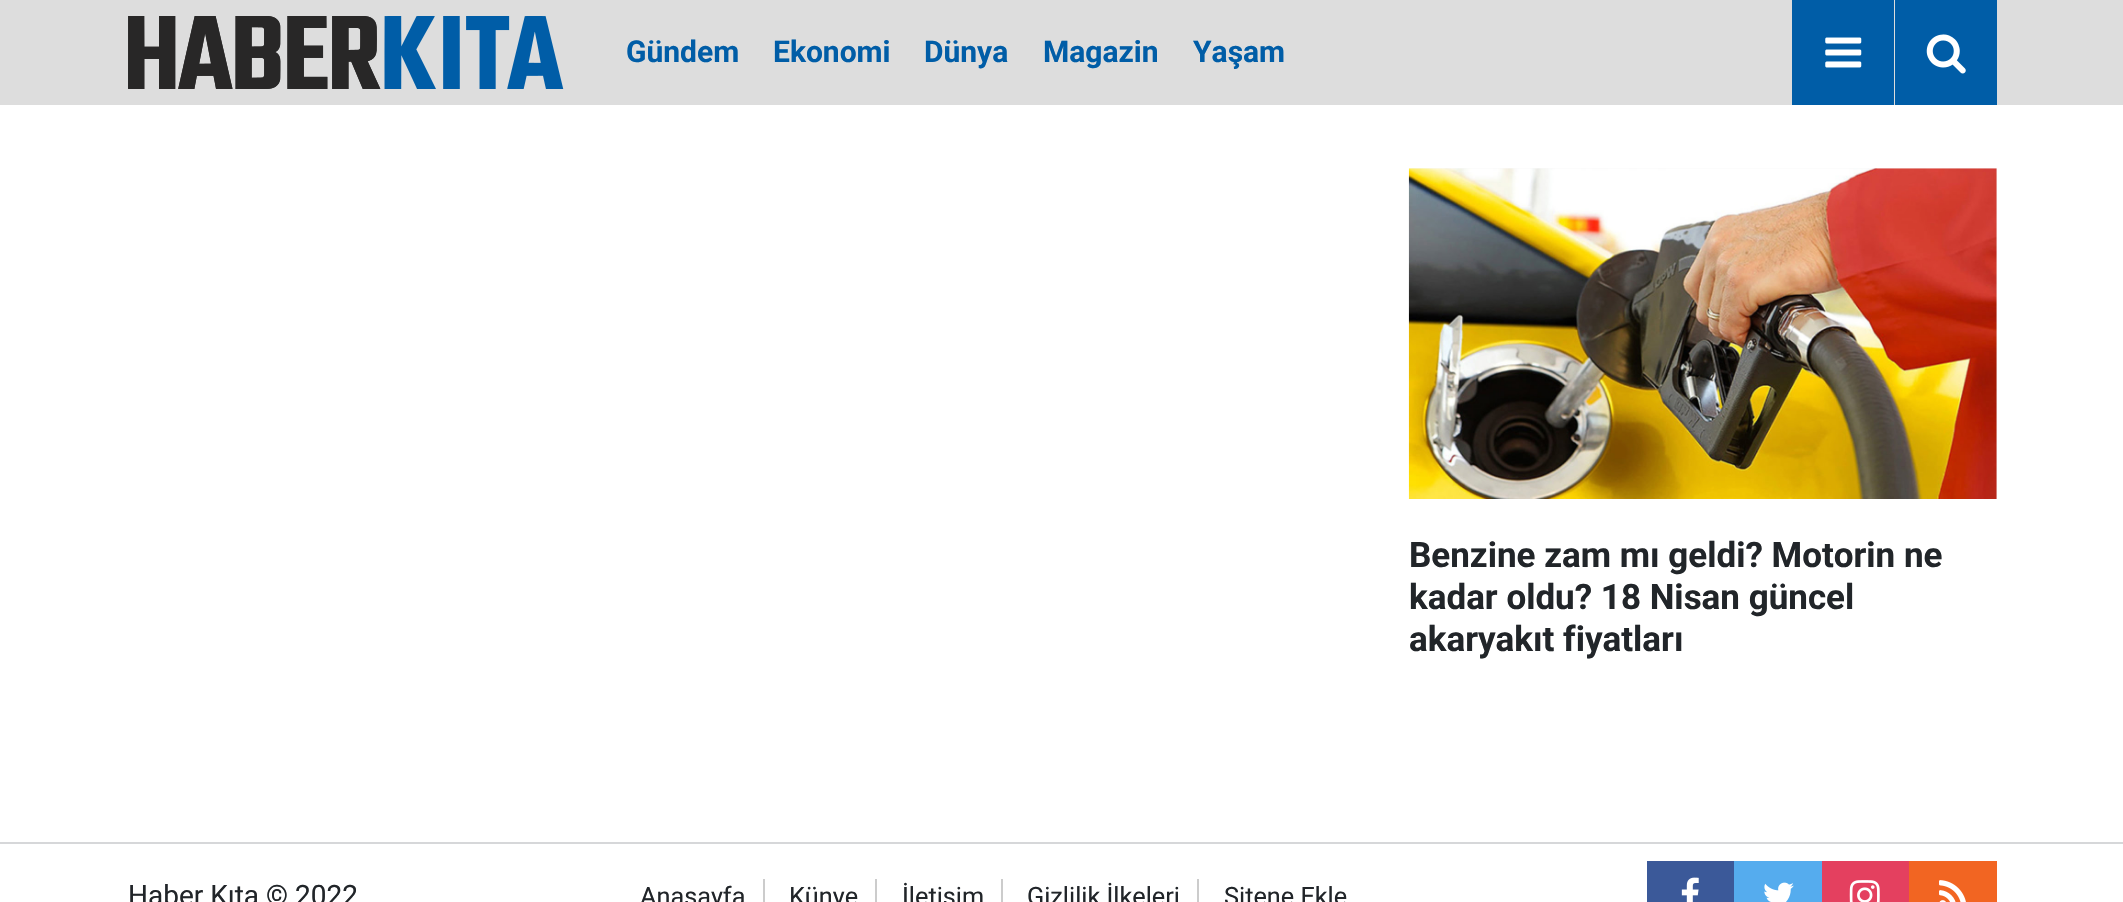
#include "include/core/SkBlurTypes.h"
#include "include/core/SkCanvas.h"
#include "include/core/SkData.h"
#include "include/core/SkFont.h"
#include "include/core/SkFontMgr.h"
#include "include/core/SkImage.h"
#include "include/core/SkMaskFilter.h"
#include "include/core/SkPaint.h"
#include "include/core/SkPathBuilder.h"
#include "include/core/SkTextBlob.h"
#include "include/effects/SkDashPathEffect.h"
#include "include/effects/SkGradientShader.h"
#include "include/utils/SkParsePath.h"

extern sk_sp<SkFontMgr> fontMgr;

static SkFont font(const char* family, int weight, float size, bool italic = false) {
    SkFontStyle style(weight, SkFontStyle::kNormal_Width,
        italic ? SkFontStyle::kItalic_Slant : SkFontStyle::kUpright_Slant);
    SkFont result(fontMgr->matchFamilyStyle(family, style), size);
    result.setSubpixel(true);
    return result;
}

static void drawLabel(SkCanvas* canvas, const char* s, float x, float y, const SkFont& font, SkColor color) {
    SkPaint ink(SkColor4f::FromColor(color));
    ink.setAntiAlias(true);
    canvas->drawString(s, x, y, font, ink);
}

static void fillRect(SkCanvas* canvas, float x, float y, float w, float h, SkColor color) {
    SkPaint ink(SkColor4f::FromColor(color));
    ink.setAntiAlias(true);
    canvas->drawRect(SkRect::MakeXYWH(x, y, w, h), ink);
}

static void drawPhoto(SkCanvas* canvas, const char* path, float x, float y, float w, float h) {
    auto image = SkImages::DeferredFromEncodedData(SkData::MakeFromFileName(path));
    canvas->drawImageRect(image, SkRect::MakeXYWH(x, y, w, h), SkSamplingOptions());
}

void draw(SkCanvas* canvas) {
    SkPaint paint;
    paint.setAntiAlias(true);
    canvas->clear(0xFFFFFFFF);
    fillRect(canvas, 0, 0, 2123, 105, 0xFFDDDDDD);
    drawPhoto(canvas, "assets/img1.png", 128, 16, 436, 73);
    SkFont font1 = font("Roboto", 700, 30);
    drawLabel(canvas, "Gündem", 626, 62, font1, 0xFF005DA7);
    drawLabel(canvas, "Ekonomi", 773, 62, font1, 0xFF005DA7);
    drawLabel(canvas, "Dünya", 924, 62, font1, 0xFF005DA7);
    drawLabel(canvas, "Magazin", 1043, 62, font1, 0xFF005DA7);
    drawLabel(canvas, "Yaşam", 1193, 62, font1, 0xFF005DA7);
    fillRect(canvas, 1792, 0, 102, 105, 0xFF005DA7);
    drawPhoto(canvas, "assets/img2.png", 1825, 37, 37, 31);
    fillRect(canvas, 1895, 0, 102, 105, 0xFF005DA7);
    drawPhoto(canvas, "assets/img3.png", 1926, 34, 40, 40);
    fillRect(canvas, 1409, 168, 588, 331, 0xFFF8F8F8);
    drawPhoto(canvas, "assets/img4.png", 1408, 168, 589, 331);
    SkFont font2 = font("Roboto", 700, 35);
    drawLabel(canvas, "Benzine zam mı geldi? Motorin ne", 1409, 567, font2, 0xFF212529);
    drawLabel(canvas, "kadar oldu? 18 Nisan güncel", 1409, 609, font2, 0xFF212529);
    drawLabel(canvas, "akaryakıt fiyatları", 1409, 651, font2, 0xFF212529);
    fillRect(canvas, 0, 842, 2123, 2, 0xFFD6D7D9);
    SkFont font3 = font("Roboto", 400, 28);
    drawLabel(canvas, "Haber Kıta © 2022", 128, 905, font3, 0xFF212529);
    fillRect(canvas, 763, 879, 2, 23, 0xFFCCCCCC);
    SkFont font4 = font("Roboto", 400, 25.25f);
    drawLabel(canvas, "Anasayfa", 640, 905, font4, 0xFF212529);
    fillRect(canvas, 875, 879, 2, 23, 0xFFCCCCCC);
    drawLabel(canvas, "Künye", 789, 905, font4, 0xFF212529);
    fillRect(canvas, 1001, 879, 2, 23, 0xFFCCCCCC);
    drawLabel(canvas, "İletişim", 902, 905, font4, 0xFF212529);
    fillRect(canvas, 1197, 879, 2, 23, 0xFFCCCCCC);
    drawLabel(canvas, "Gizlilik İlkeleri", 1027, 905, font4, 0xFF212529);
    drawLabel(canvas, "Sitene Ekle", 1224, 905, font4, 0xFF212529);
    fillRect(canvas, 1647, 861, 87, 41, 0xFF3B5999);
    drawPhoto(canvas, "assets/img5.png", 1681, 877, 18, 25);
    fillRect(canvas, 1734, 861, 88, 41, 0xFF55ACEE);
    drawPhoto(canvas, "assets/img6.png", 1764, 882, 30, 20);
    fillRect(canvas, 1822, 861, 87, 41, 0xFFE4405F);
    drawPhoto(canvas, "assets/img7.png", 1849, 880, 31, 22);
    fillRect(canvas, 1909, 861, 88, 41, 0xFFF26522);
    drawPhoto(canvas, "assets/img8.png", 1939, 880, 27, 22);
}
